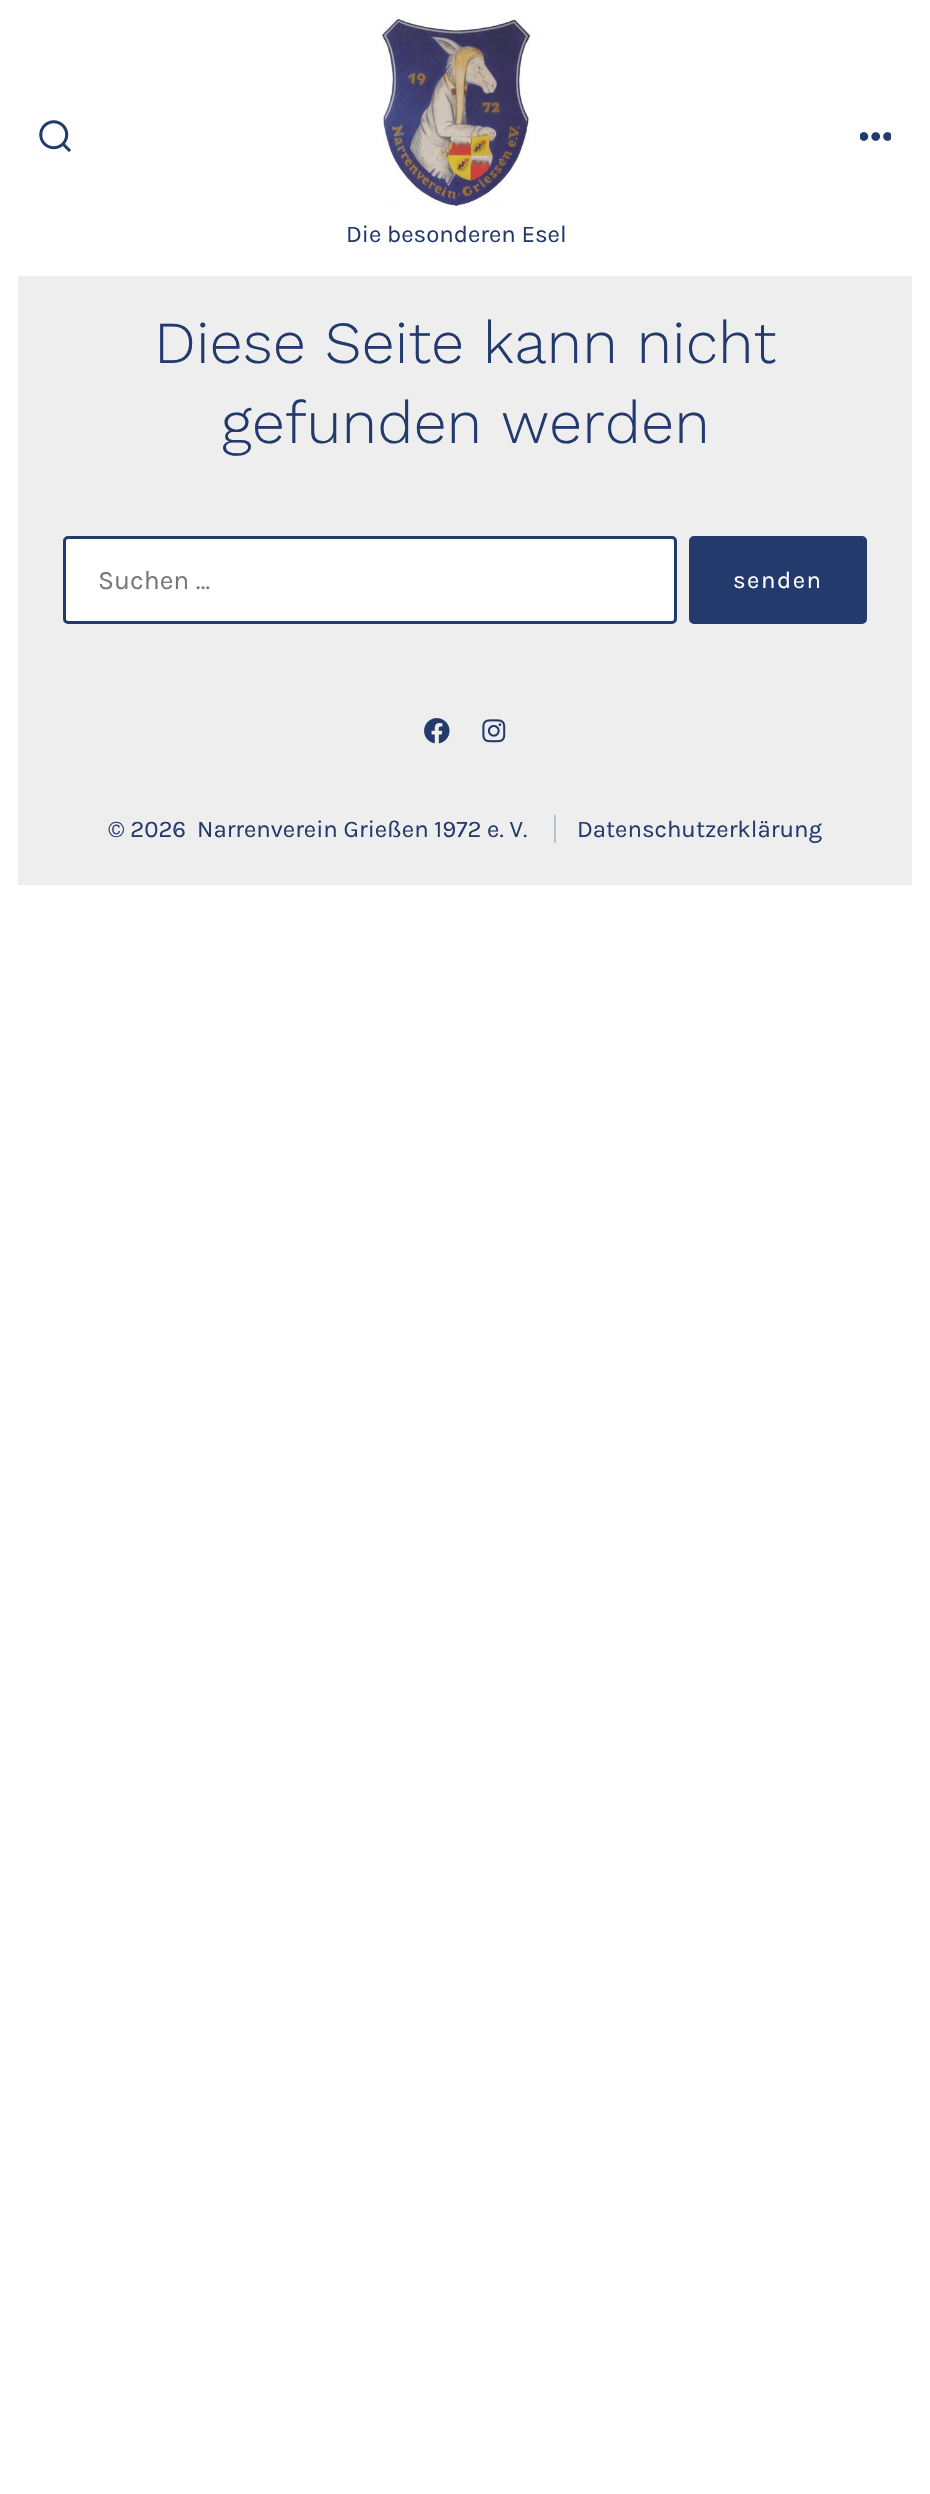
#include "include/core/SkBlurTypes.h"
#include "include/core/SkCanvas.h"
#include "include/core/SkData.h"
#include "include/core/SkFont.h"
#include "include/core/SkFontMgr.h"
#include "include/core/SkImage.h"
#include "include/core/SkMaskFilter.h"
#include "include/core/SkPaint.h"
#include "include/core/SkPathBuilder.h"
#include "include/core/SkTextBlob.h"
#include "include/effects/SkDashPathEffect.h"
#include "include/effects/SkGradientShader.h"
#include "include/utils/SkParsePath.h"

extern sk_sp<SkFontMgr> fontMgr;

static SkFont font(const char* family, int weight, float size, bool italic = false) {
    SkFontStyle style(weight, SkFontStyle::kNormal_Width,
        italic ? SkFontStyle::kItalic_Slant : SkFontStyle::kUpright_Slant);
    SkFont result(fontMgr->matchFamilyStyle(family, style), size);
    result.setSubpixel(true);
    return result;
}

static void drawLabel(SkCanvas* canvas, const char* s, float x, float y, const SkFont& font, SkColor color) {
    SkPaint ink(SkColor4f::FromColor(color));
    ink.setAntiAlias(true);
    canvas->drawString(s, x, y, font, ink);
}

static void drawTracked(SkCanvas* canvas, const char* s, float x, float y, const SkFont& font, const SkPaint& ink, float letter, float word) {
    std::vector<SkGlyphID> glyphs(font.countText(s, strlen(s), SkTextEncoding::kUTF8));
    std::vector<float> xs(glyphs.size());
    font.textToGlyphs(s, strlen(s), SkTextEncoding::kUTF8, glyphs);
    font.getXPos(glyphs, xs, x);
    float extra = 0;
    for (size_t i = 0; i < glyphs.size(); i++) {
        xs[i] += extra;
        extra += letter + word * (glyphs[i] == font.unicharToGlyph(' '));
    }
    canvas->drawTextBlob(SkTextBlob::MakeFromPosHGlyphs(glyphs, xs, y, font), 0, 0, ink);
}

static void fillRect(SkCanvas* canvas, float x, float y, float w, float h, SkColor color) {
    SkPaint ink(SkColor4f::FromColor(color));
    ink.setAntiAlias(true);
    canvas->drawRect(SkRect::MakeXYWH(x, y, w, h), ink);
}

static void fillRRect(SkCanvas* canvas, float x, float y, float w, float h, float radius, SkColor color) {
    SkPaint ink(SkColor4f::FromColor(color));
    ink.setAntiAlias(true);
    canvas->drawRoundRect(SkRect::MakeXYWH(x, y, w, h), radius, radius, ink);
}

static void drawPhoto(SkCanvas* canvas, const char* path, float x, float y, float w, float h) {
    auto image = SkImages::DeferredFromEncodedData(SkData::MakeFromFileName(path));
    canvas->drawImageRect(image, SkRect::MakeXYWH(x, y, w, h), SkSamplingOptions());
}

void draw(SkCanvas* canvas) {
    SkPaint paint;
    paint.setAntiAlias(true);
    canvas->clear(0xFFFFFFFF);
    fillRect(canvas, 18, 276, 894, 609, 0xFFEEEEEE);
    drawPhoto(canvas, "assets/img1.png", 39, 120, 32, 32);
    drawPhoto(canvas, "assets/img2.png", 860, 132, 31, 9);
    drawPhoto(canvas, "assets/img3.png", 381, 18, 150, 189);
    SkFont font1 = font("Karla", 400, 24);
    drawLabel(canvas, "Die besonderen Esel", 346, 242, font1, 0xFF233A6C);
    SkFont font2 = font("Work Sans", 300, 59.6f);
    drawLabel(canvas, "Diese Seite kann nicht", 154, 363, font2, 0xFF233A6C);
    drawLabel(canvas, "gefunden werden", 221, 443, font2, 0xFF233A6C);
    paint.setColor(0xFFFFFFFF);
    canvas->drawRoundRect(SkRect::MakeXYWH(64.5f, 537.5f, 611, 85), 3.5f, 3.5f, paint);
    paint.setStroke(true);
    paint.setStrokeWidth(3);
    paint.setColor(0xFF233A6C);
    canvas->drawRoundRect(SkRect::MakeXYWH(64.5f, 537.5f, 611, 85), 3.5f, 3.5f, paint);
    SkFont font3 = font("Karla", 400, 26.5f);
    drawLabel(canvas, "Suchen …", 98, 589, font3, 0xFF787878);
    fillRRect(canvas, 689, 536, 178, 88, 5, 0xFF233A6C);
    paint.setStroke(false);
    paint.setColor(0xFFFFFFFF);
    drawTracked(canvas, "senden", 733, 588, font1, paint, 1.5f, 0);
    drawPhoto(canvas, "assets/img4.png", 424, 718, 26, 26);
    drawPhoto(canvas, "assets/img5.png", 482, 719, 24, 24);
    drawLabel(canvas, "© 2026", 108, 837, font1, 0xFF233A6C);
    drawLabel(canvas, "Narrenverein Grießen 1972 e. V.", 197, 837, font1, 0xFF233A6C);
    fillRect(canvas, 554, 815, 2, 28, 0xFFBBC1CE);
    drawLabel(canvas, "Datenschutzerklärung", 577, 837, font1, 0xFF233A6C);
}
